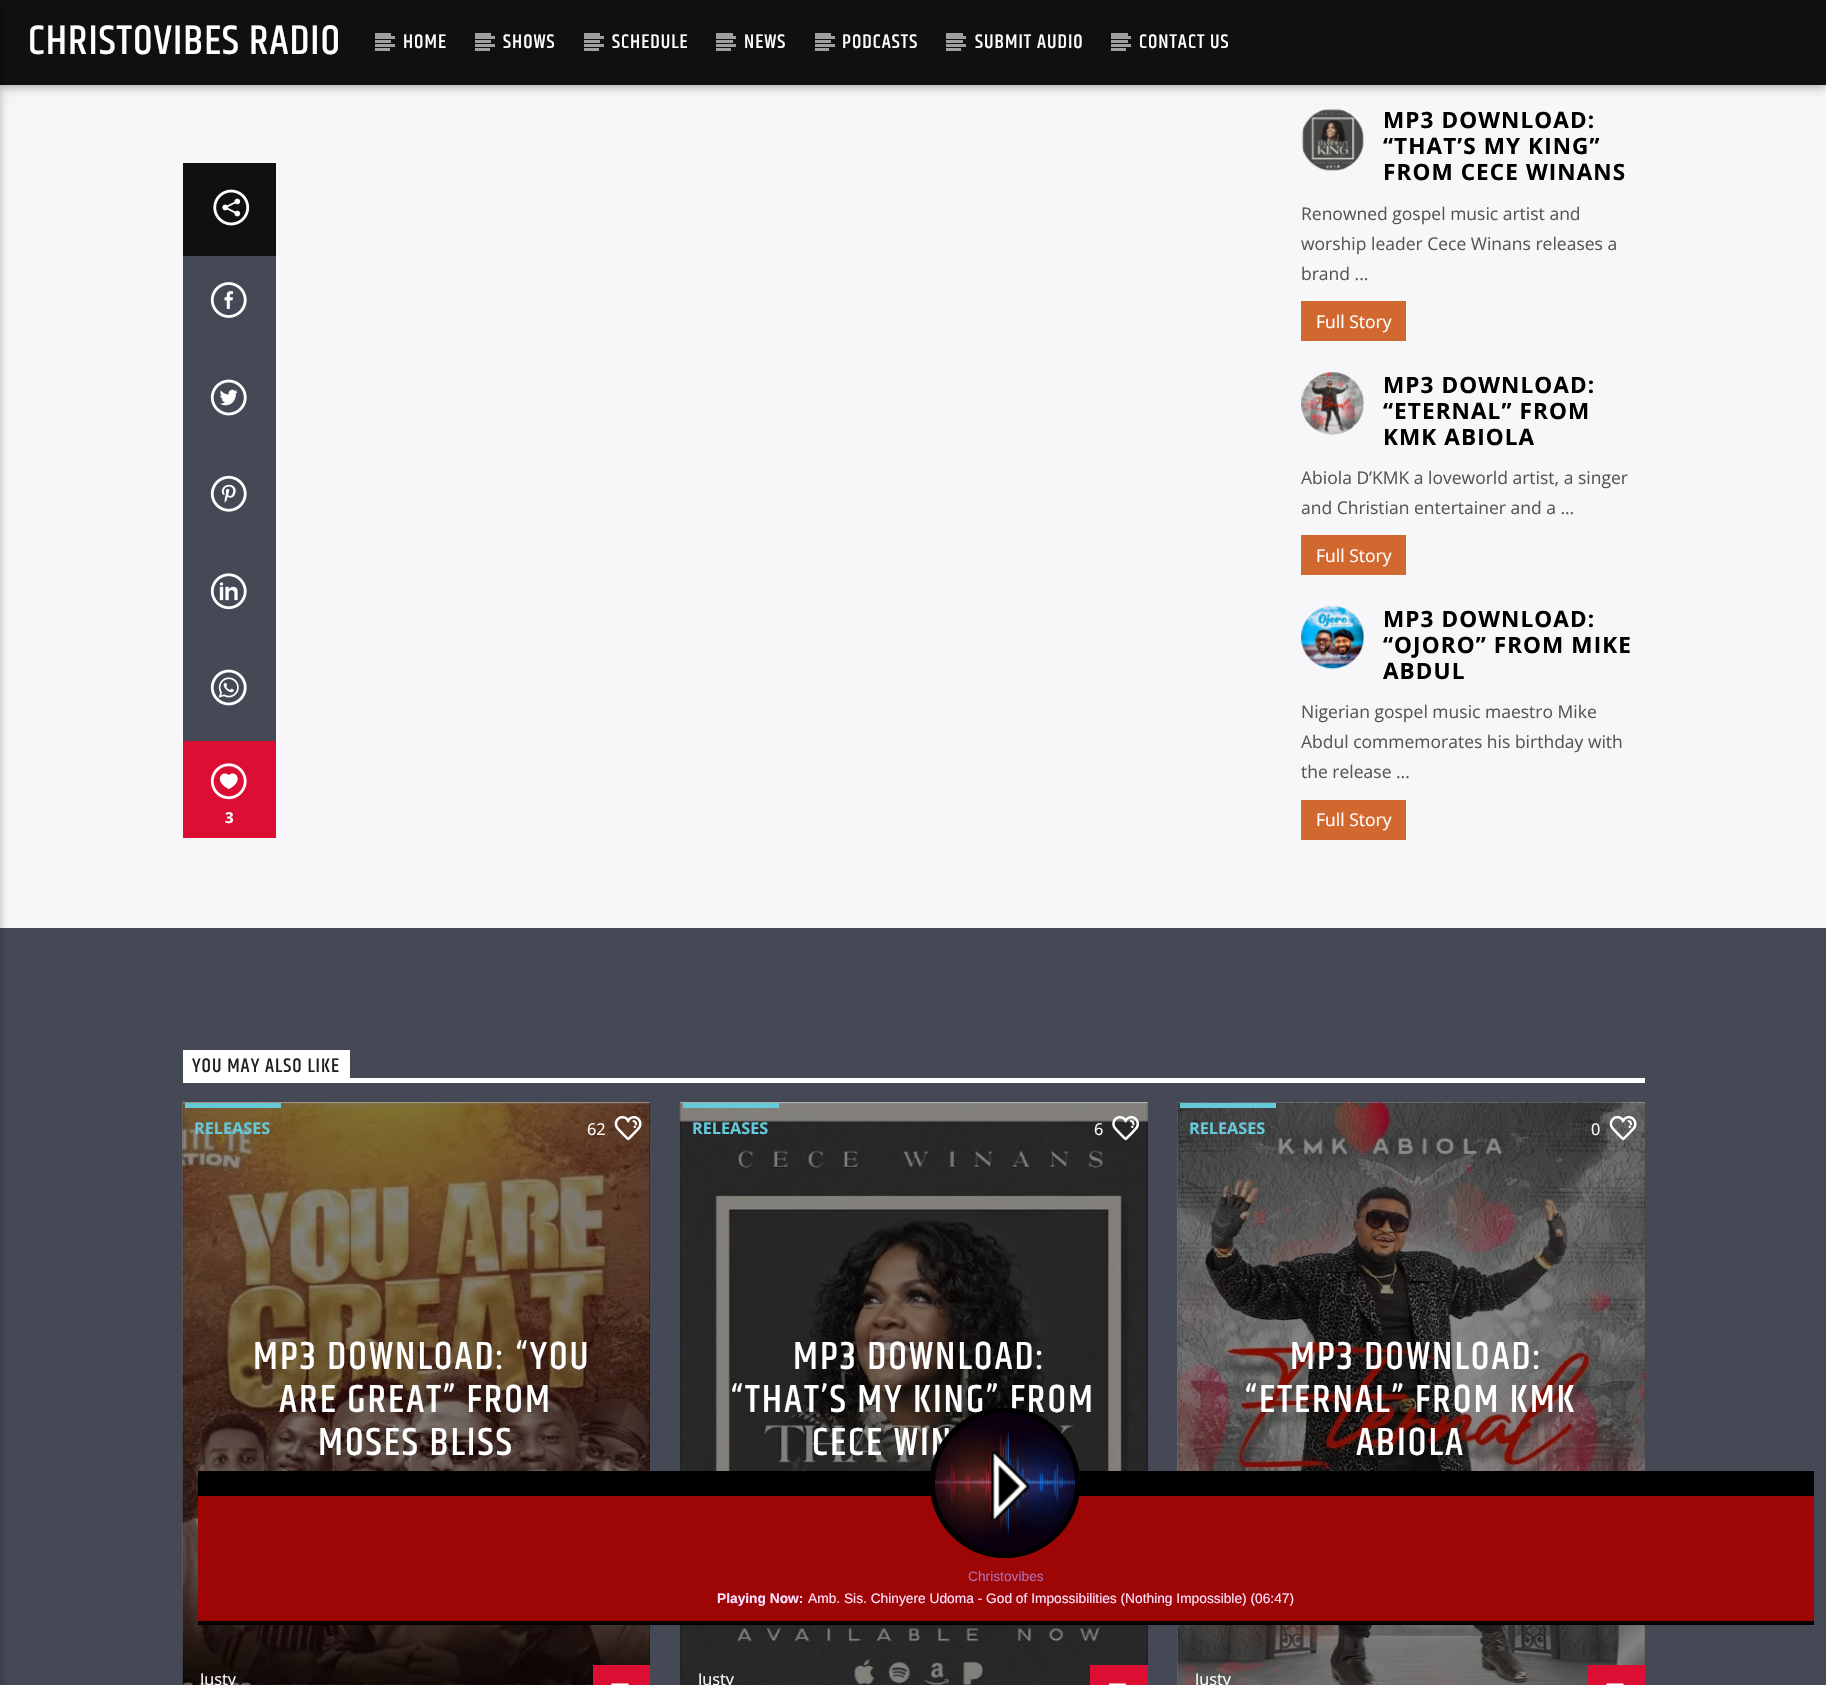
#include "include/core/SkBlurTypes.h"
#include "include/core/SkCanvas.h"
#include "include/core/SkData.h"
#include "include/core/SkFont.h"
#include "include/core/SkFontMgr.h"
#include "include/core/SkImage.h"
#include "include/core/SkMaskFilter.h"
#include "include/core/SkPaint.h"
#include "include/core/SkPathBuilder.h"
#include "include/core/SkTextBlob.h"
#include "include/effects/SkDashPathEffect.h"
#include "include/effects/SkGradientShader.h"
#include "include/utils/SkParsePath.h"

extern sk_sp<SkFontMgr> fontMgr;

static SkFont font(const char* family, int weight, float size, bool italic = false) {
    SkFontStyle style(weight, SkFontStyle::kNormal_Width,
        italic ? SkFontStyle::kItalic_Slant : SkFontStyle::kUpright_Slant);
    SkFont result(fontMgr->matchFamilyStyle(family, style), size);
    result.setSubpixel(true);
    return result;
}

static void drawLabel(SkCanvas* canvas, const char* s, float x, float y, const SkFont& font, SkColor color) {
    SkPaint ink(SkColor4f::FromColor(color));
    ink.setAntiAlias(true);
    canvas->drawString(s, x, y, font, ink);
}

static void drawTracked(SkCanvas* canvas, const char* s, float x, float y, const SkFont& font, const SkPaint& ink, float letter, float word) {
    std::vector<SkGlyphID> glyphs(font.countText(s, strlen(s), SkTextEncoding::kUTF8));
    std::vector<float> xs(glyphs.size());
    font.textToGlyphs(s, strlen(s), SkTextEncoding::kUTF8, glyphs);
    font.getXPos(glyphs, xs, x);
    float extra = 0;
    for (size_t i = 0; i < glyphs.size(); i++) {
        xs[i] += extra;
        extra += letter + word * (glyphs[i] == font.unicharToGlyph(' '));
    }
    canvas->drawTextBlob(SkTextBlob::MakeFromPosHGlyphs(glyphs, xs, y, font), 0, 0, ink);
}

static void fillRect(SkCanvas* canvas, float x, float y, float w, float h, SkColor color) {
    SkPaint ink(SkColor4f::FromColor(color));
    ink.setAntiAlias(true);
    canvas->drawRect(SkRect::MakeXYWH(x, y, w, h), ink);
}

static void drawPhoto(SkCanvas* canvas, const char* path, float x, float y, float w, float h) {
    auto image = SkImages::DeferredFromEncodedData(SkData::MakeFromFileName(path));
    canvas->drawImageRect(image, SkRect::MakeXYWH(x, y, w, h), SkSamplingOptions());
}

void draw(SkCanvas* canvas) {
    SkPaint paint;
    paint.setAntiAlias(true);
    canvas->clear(0xFFF7F7F9);
    paint.setColor(0x1F000000);
    paint.setMaskFilter(SkMaskFilter::MakeBlur(kNormal_SkBlurStyle, 6));
    canvas->drawRect(SkRect::MakeXYWH(0, 3, 1826, 85), paint);
    paint.setMaskFilter(nullptr);
    paint.setColor(0x29000000);
    paint.setMaskFilter(SkMaskFilter::MakeBlur(kNormal_SkBlurStyle, 3));
    canvas->drawRect(SkRect::MakeXYWH(0, 3, 1826, 85), paint);
    paint.setMaskFilter(nullptr);
    fillRect(canvas, 0, 0, 1826, 85, 0xFF101010);
    fillRect(canvas, 0, 928, 1826, 757, 0xFF454955);
    paint.setColor(0x1F000000);
    paint.setMaskFilter(SkMaskFilter::MakeBlur(kNormal_SkBlurStyle, 6));
    canvas->drawRect(SkRect::MakeXYWH(-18, 3, 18, 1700), paint);
    paint.setMaskFilter(nullptr);
    paint.setColor(0x29000000);
    paint.setMaskFilter(SkMaskFilter::MakeBlur(kNormal_SkBlurStyle, 3));
    canvas->drawRect(SkRect::MakeXYWH(-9, 3, 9, 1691), paint);
    paint.setMaskFilter(nullptr);
    SkFont font1 = font("Khand", 500, 42);
    paint.setColor(0xFFFFFFFF);
    drawTracked(canvas, "CHRISTOVIBES RADIO", 28, 54, font1, paint, 1, 0);
    fillRect(canvas, 375, 33, 16, 3, 0xFF9F9F9F);
    fillRect(canvas, 375, 40, 16, 3, 0xFF9F9F9F);
    SkFont font2 = font("Khand", 500, 20);
    drawTracked(canvas, "HOME", 403, 48, font2, paint, 1, 0);
    fillRect(canvas, 375, 36, 20, 3, 0xFF9F9F9F);
    fillRect(canvas, 375, 44, 20, 3, 0xFF9F9F9F);
    fillRect(canvas, 375, 48, 15, 3, 0xFF9F9F9F);
    fillRect(canvas, 475, 33, 16, 3, 0xFF9F9F9F);
    fillRect(canvas, 475, 40, 16, 3, 0xFF9F9F9F);
    drawTracked(canvas, "SHOWS", 503, 48, font2, paint, 1, 0);
    fillRect(canvas, 475, 36, 20, 3, 0xFF9F9F9F);
    fillRect(canvas, 475, 44, 20, 3, 0xFF9F9F9F);
    fillRect(canvas, 475, 48, 15, 3, 0xFF9F9F9F);
    fillRect(canvas, 584, 33, 16, 3, 0xFF9F9F9F);
    fillRect(canvas, 584, 40, 16, 3, 0xFF9F9F9F);
    drawTracked(canvas, "SCHEDULE", 612, 48, font2, paint, 1, 0);
    fillRect(canvas, 584, 36, 20, 3, 0xFF9F9F9F);
    fillRect(canvas, 584, 44, 20, 3, 0xFF9F9F9F);
    fillRect(canvas, 584, 48, 15, 3, 0xFF9F9F9F);
    fillRect(canvas, 716, 33, 17, 3, 0xFF9F9F9F);
    fillRect(canvas, 716, 40, 17, 3, 0xFF9F9F9F);
    drawTracked(canvas, "NEWS", 744, 48, font2, paint, 1, 0);
    fillRect(canvas, 716, 36, 20, 3, 0xFF9F9F9F);
    fillRect(canvas, 716, 44, 20, 3, 0xFF9F9F9F);
    fillRect(canvas, 716, 48, 15, 3, 0xFF9F9F9F);
    fillRect(canvas, 815, 33, 16, 3, 0xFF9F9F9F);
    fillRect(canvas, 815, 40, 16, 3, 0xFF9F9F9F);
    drawTracked(canvas, "PODCASTS", 842, 48, font2, paint, 1, 0);
    fillRect(canvas, 815, 36, 20, 3, 0xFF9F9F9F);
    fillRect(canvas, 815, 44, 20, 3, 0xFF9F9F9F);
    fillRect(canvas, 815, 48, 14, 3, 0xFF9F9F9F);
    fillRect(canvas, 946, 33, 17, 3, 0xFF9F9F9F);
    fillRect(canvas, 946, 40, 17, 3, 0xFF9F9F9F);
    drawTracked(canvas, "SUBMIT AUDIO", 975, 48, font2, paint, 1, 0);
    fillRect(canvas, 946, 36, 20, 3, 0xFF9F9F9F);
    fillRect(canvas, 946, 44, 20, 3, 0xFF9F9F9F);
    fillRect(canvas, 946, 48, 15, 3, 0xFF9F9F9F);
    fillRect(canvas, 1111, 33, 17, 3, 0xFF9F9F9F);
    fillRect(canvas, 1111, 40, 17, 3, 0xFF9F9F9F);
    drawTracked(canvas, "CONTACT US", 1139, 48, font2, paint, 1, 0);
    fillRect(canvas, 1111, 36, 20, 3, 0xFF9F9F9F);
    fillRect(canvas, 1111, 44, 20, 3, 0xFF9F9F9F);
    fillRect(canvas, 1111, 48, 15, 3, 0xFF9F9F9F);
    fillRect(canvas, 183, 256, 93, 485, 0xFF454955);
    fillRect(canvas, 183, 163, 93, 93, 0xFF101010);
    drawPhoto(canvas, "assets/img1.png", 213, 189, 37, 37);
    drawPhoto(canvas, "assets/img2.png", 210, 282, 37, 36);
    drawPhoto(canvas, "assets/img3.png", 210, 379, 37, 37);
    drawPhoto(canvas, "assets/img4.png", 210, 475, 37, 37);
    drawPhoto(canvas, "assets/img5.png", 210, 573, 37, 37);
    drawPhoto(canvas, "assets/img6.png", 210, 669, 37, 37);
    fillRect(canvas, 183, 741, 93, 97, 0xFFDD0E34);
    drawPhoto(canvas, "assets/img7.png", 210, 763, 37, 37);
    SkFont font3 = font("Open Sans", 700, 15);
    drawLabel(canvas, "3", 225, 823, font3, 0xFFFFFFFF);
    drawPhoto(canvas, "assets/img8.png", 1301, 108, 63, 64);
    SkFont font4 = font("Open Sans", 700, 22.5f);
    paint.setColor(0xFF000000);
    drawTracked(canvas, "MP3 DOWNLOAD:", 1383, 128, font4, paint, 1.1f, 0);
    drawTracked(canvas, "“THAT’S MY KING”", 1383, 154, font4, paint, 1.1f, 0);
    drawTracked(canvas, "FROM CECE WINANS", 1383, 180, font4, paint, 1.1f, 0);
    SkFont font5 = font("Open Sans", 400, 17.5f);
    drawLabel(canvas, "Renowned gospel music artist and", 1301, 220, font5, 0xFF565657);
    drawLabel(canvas, "worship leader Cece Winans releases a", 1301, 250, font5, 0xFF565657);
    drawLabel(canvas, "brand ...", 1301, 280, font5, 0xFF565657);
    fillRect(canvas, 1301, 301, 105, 40, 0xFFD16830);
    drawLabel(canvas, "Full Story", 1316, 328, font5, 0xFFFFFFFF);
    drawPhoto(canvas, "assets/img9.png", 1301, 372, 63, 64);
    drawTracked(canvas, "MP3 DOWNLOAD:", 1383, 393, font4, paint, 1.1f, 0);
    drawTracked(canvas, "“ETERNAL” FROM", 1383, 419, font4, paint, 1.1f, 0);
    drawTracked(canvas, "KMK ABIOLA", 1383, 445, font4, paint, 1.1f, 0);
    drawLabel(canvas, "Abiola D’KMK a loveworld artist, a singer", 1301, 484, font5, 0xFF565657);
    drawLabel(canvas, "and Christian entertainer and a ...", 1301, 514, font5, 0xFF565657);
    fillRect(canvas, 1301, 535, 105, 40, 0xFFD16830);
    drawLabel(canvas, "Full Story", 1316, 562, font5, 0xFFFFFFFF);
    drawPhoto(canvas, "assets/img10.png", 1301, 606, 63, 64);
    drawTracked(canvas, "MP3 DOWNLOAD:", 1383, 627, font4, paint, 1.1f, 0);
    drawTracked(canvas, "“OJORO” FROM MIKE", 1383, 653, font4, paint, 1.1f, 0);
    drawTracked(canvas, "ABDUL", 1383, 679, font4, paint, 1.1f, 0);
    drawLabel(canvas, "Nigerian gospel music maestro Mike", 1301, 718, font5, 0xFF565657);
    drawLabel(canvas, "Abdul commemorates his birthday with", 1301, 748, font5, 0xFF565657);
    drawLabel(canvas, "the release ...", 1301, 778, font5, 0xFF565657);
    fillRect(canvas, 1301, 800, 105, 40, 0xFFD16830);
    drawLabel(canvas, "Full Story", 1316, 826, font5, 0xFFFFFFFF);
    fillRect(canvas, 350, 1078, 1295, 5, 0xFFFFFFFF);
    fillRect(canvas, 183, 1050, 167, 33, 0xFFFFFFFF);
    paint.setColor(0xFF212121);
    drawTracked(canvas, "YOU MAY ALSO LIKE", 192, 1072, font2, paint, 1, 0);
    fillRect(canvas, 183, 1103, 467, 582, 0xFF000000);
    drawPhoto(canvas, "assets/img11.png", 182, 1102, 468, 583);
    fillRect(canvas, 185, 1103, 96, 5, 0xFF64C9D9);
    SkFont font6 = font("Open Sans", 700, 16.25f);
    drawLabel(canvas, "RELEASES", 194, 1134, font6, 0xFF64C9D9);
    SkFont font7 = font("Open Sans", 400, 16.25f);
    drawLabel(canvas, "62", 587, 1135, font7, 0xFFFFFFFF);
    drawPhoto(canvas, "assets/img12.png", 614, 1115, 28, 26);
    SkFont font8 = font("Khand", 500, 40);
    paint.setColor(0xFFFFFFFF);
    drawTracked(canvas, "MP3 DOWNLOAD: “YOU", 253, 1369, font8, paint, 2, 0);
    drawTracked(canvas, "ARE GREAT” FROM", 279, 1412, font8, paint, 2, 0);
    drawTracked(canvas, "MOSES BLISS", 318, 1455, font8, paint, 2, 0);
    drawLabel(canvas, "Justy", 200, 1685, font7, 0xFFFFFFFF);
    fillRect(canvas, 593, 1665, 57, 20, 0xFFDD0E34);
    drawPhoto(canvas, "assets/img13.png", 611, 1683, 18, 2);
    fillRect(canvas, 680, 1103, 468, 582, 0xFF000000);
    drawPhoto(canvas, "assets/img14.png", 679, 1102, 469, 583);
    fillRect(canvas, 683, 1103, 96, 5, 0xFF64C9D9);
    drawLabel(canvas, "RELEASES", 692, 1134, font6, 0xFF64C9D9);
    drawLabel(canvas, "6", 1094, 1135, font7, 0xFFFFFFFF);
    drawPhoto(canvas, "assets/img15.png", 1112, 1115, 27, 26);
    drawTracked(canvas, "MP3 DOWNLOAD:", 793, 1369, font8, paint, 2, 0);
    drawTracked(canvas, "“THAT’S MY KING” FROM", 731, 1412, font8, paint, 2, 0);
    drawTracked(canvas, "CECE WIN", 812, 1455, font8, paint, 2, 0);
    drawLabel(canvas, "Justy", 698, 1685, font7, 0xFFFFFFFF);
    fillRect(canvas, 1090, 1665, 58, 20, 0xFFDD0E34);
    drawPhoto(canvas, "assets/img16.png", 1108, 1683, 19, 2);
    fillRect(canvas, 1178, 1103, 467, 582, 0xFF000000);
    drawPhoto(canvas, "assets/img17.png", 1177, 1102, 468, 583);
    fillRect(canvas, 1180, 1103, 96, 5, 0xFF64C9D9);
    drawLabel(canvas, "RELEASES", 1189, 1134, font6, 0xFF64C9D9);
    drawLabel(canvas, "0", 1591, 1135, font7, 0xFFFFFFFF);
    drawPhoto(canvas, "assets/img18.png", 1609, 1115, 28, 26);
    drawTracked(canvas, "MP3 DOWNLOAD:", 1290, 1369, font8, paint, 2, 0);
    drawTracked(canvas, "“ETERNAL” FROM KMK", 1245, 1412, font8, paint, 2, 0);
    drawTracked(canvas, "ABIOLA", 1356, 1455, font8, paint, 2, 0);
    drawLabel(canvas, "Justy", 1195, 1685, font7, 0xFFFFFFFF);
    fillRect(canvas, 1588, 1665, 57, 20, 0xFFDD0E34);
    drawPhoto(canvas, "assets/img13.png", 1606, 1683, 18, 2);
    fillRect(canvas, 198, 1471, 1616, 25, 0xFF000000);
    fillRect(canvas, 198, 1496, 1616, 125, 0xFF9E0606);
    paint.setColor(0xFF000000);
    canvas->drawCircle(1005, 1483, 75, paint);
    drawPhoto(canvas, "assets/img19.png", 929, 1412, 151, 141);
    paint.setStroke(true);
    paint.setStrokeWidth(5);
    canvas->drawCircle(1005, 1483, 72.5f, paint);
    drawPhoto(canvas, "assets/img20.png", 990, 1451, 40, 70);
    fillRect(canvas, 198, 1621, 1616, 4, 0xFF000000);
    SkFont font9 = font("Liberation Sans", 400, 13.75f);
    drawLabel(canvas, "Christovibes", 968, 1581, font9, 0xFFB36EB3);
    SkFont font10 = font("Liberation Sans", 700, 13.75f);
    drawLabel(canvas, "Playing Now:", 717, 1603, font10, 0xFFFFE0FF);
    drawLabel(canvas, "Amb. Sis. Chinyere Udoma - God of Impossibilities (Nothing Impossible) (06:47)", 808, 1603, font9, 0xFFFFE0FF);
}
